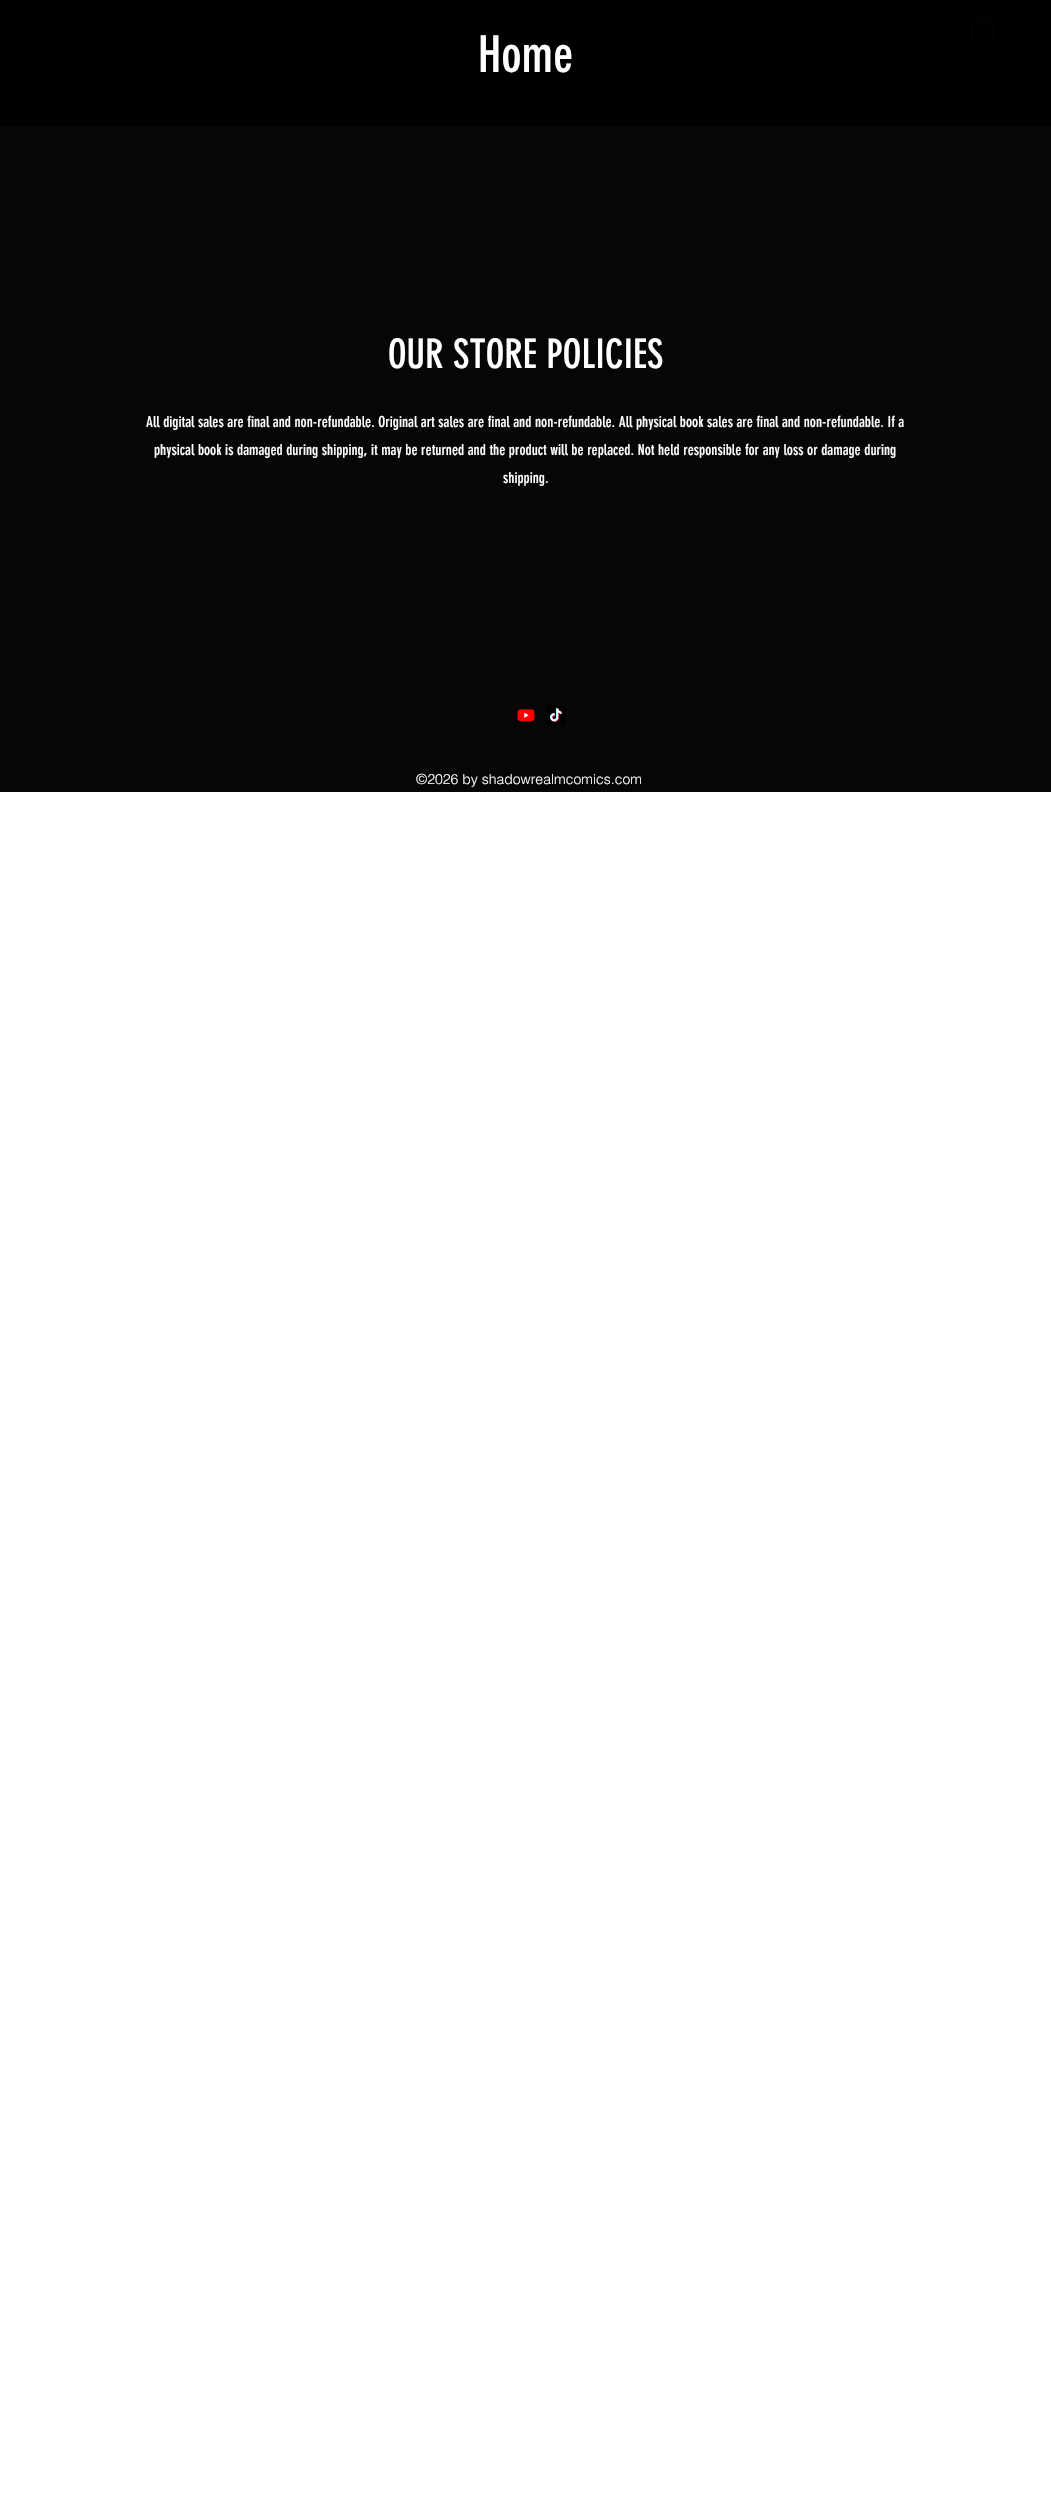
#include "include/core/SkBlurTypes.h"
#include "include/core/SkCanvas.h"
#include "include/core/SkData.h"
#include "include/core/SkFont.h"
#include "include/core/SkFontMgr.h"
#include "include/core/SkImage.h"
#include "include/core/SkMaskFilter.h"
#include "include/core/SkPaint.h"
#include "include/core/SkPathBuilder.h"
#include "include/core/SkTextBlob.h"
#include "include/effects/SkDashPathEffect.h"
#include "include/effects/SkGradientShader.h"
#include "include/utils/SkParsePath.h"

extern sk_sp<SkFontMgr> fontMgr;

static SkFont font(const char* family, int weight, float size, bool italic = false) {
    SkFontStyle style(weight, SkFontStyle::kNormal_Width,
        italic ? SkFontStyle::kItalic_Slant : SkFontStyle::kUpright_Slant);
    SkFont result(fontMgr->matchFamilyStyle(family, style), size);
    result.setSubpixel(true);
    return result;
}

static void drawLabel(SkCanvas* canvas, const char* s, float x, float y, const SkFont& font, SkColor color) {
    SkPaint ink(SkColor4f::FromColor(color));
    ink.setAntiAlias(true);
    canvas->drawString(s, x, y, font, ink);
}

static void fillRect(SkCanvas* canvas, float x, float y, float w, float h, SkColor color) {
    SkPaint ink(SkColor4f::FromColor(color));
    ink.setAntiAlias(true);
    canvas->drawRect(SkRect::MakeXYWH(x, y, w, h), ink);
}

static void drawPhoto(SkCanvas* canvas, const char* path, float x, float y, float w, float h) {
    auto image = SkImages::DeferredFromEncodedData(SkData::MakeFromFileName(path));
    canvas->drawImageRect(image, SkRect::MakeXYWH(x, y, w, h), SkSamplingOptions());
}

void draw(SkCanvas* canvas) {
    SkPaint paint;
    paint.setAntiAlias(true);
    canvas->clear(0xFFFFFFFF);
    fillRect(canvas, 0, 0, 1051, 126, 0xFF000000);
    drawPhoto(canvas, "assets/img1.png", 971, 13, 24, 26);
    SkFont font1 = font("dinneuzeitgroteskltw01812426", 400, 50);
    drawLabel(canvas, "Home", 478, 72, font1, 0xFFFFFFFF);
    fillRect(canvas, 0, 126, 1051, 666, 0xFF060606);
    SkFont font2 = font("dinneuzeitgroteskltw01812426", 400, 40);
    drawLabel(canvas, "OUR STORE POLICIES", 388, 368, font2, 0xFFFFFFFF);
    SkFont font3 = font("dinneuzeitgroteskltw01812426", 400, 15);
    drawLabel(canvas, "All digital sales are final and non-refundable. Original art sales are final and non-refundable. All physical book sales are final and non-refundable. If a", 146, 427, font3, 0xFFFFFFFF);
    drawLabel(canvas, "physical book is damaged during shipping, it may be returned and the product will be replaced. Not held responsible for any loss or damage during", 154, 455, font3, 0xFFFFFFFF);
    drawLabel(canvas, "shipping.", 503, 483, font3, 0xFFFFFFFF);
    drawPhoto(canvas, "assets/img2.png", 517, 709, 18, 13);
    drawPhoto(canvas, "assets/img3.png", 546, 705, 20, 20);
    SkFont font4 = font("helvetica", 300, 14);
    drawLabel(canvas, "©2026 by shadowrealmcomics.com", 416, 784, font4, 0xFFFFFFFF);
}
